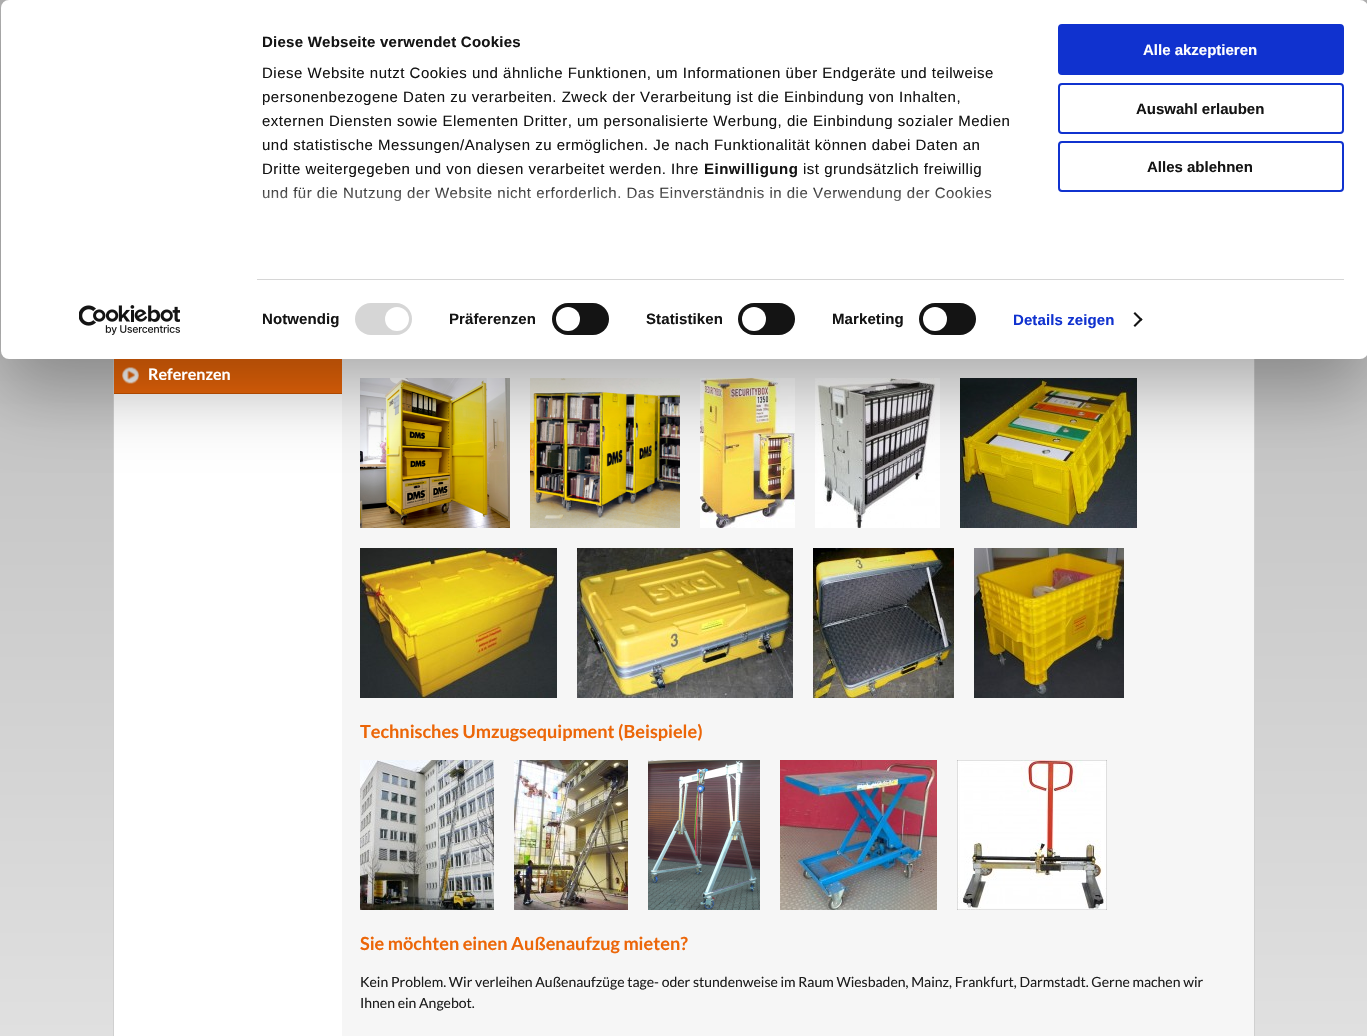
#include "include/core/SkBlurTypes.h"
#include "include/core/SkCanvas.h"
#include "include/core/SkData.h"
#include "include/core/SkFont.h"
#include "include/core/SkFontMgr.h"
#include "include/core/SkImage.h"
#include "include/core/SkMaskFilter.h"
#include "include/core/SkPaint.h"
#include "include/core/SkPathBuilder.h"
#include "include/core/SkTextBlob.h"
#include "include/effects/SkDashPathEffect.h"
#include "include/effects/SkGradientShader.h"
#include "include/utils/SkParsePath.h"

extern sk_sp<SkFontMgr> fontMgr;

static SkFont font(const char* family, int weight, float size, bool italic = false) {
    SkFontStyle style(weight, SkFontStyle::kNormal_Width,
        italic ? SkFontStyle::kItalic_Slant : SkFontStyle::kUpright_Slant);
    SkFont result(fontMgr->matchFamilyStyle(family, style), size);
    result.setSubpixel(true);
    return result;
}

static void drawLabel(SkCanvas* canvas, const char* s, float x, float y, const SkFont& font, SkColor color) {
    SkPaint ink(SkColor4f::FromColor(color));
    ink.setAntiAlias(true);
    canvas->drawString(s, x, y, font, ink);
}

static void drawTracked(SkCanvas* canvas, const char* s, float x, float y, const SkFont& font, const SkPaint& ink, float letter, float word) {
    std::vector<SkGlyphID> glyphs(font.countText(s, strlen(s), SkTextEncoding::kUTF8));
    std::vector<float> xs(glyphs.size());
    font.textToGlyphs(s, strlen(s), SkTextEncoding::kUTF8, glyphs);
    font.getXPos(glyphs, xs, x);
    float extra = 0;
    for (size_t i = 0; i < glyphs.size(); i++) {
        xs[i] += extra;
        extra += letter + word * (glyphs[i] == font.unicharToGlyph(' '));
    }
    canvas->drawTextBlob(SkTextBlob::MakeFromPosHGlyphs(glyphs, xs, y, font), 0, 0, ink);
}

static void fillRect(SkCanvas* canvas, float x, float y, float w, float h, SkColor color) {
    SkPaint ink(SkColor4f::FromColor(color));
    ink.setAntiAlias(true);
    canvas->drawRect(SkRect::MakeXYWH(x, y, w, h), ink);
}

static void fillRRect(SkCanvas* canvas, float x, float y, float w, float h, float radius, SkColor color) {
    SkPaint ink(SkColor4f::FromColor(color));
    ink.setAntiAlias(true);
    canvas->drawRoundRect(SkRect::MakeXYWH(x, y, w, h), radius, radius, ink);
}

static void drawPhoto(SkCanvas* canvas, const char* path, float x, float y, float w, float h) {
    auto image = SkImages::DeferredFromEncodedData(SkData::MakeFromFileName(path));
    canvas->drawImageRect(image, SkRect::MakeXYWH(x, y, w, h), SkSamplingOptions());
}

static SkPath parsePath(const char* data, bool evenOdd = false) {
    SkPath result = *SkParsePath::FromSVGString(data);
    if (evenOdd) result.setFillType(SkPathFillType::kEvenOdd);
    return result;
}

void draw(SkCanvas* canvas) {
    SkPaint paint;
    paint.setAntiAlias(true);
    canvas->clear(0xFFFFFFFF);
    {
        const SkColor colors[] = {0xFFB3B3B3, 0xFFE0E0E0};
        const float stops[] = {0, 1};
        const SkPoint ends[] = {{683, 0}, {684, 1036}};
        paint.setShader(SkGradientShader::MakeLinear(ends, colors, stops, 2, SkTileMode::kClamp));
        paint.setAlpha(255);
    }
    canvas->drawRect(SkRect::MakeXYWH(0, 0, 1367, 1036), paint);
    fillRect(canvas, 114, 394, 228, 642, 0xFFFFFFFF);
    fillRect(canvas, 1254, 359, 1, 677, 0xFFD0D0D0);
    fillRect(canvas, 113, 359, 1, 677, 0xFFD0D0D0);
    fillRect(canvas, 114, 359, 228, 34, 0xFFEC6608);
    drawPhoto(canvas, "assets/img2.png", 122, 367, 17, 17);
    fillRect(canvas, 114, 393, 228, 1, 0xFFC75200);
    fillRect(canvas, 342, 359, 912, 677, 0xFFF6F6F6);
    drawPhoto(canvas, "assets/img3.png", 360, 378, 150, 150);
    drawPhoto(canvas, "assets/img4.png", 530, 378, 150, 150);
    drawPhoto(canvas, "assets/img5.png", 700, 378, 95, 150);
    drawPhoto(canvas, "assets/img6.png", 815, 378, 125, 150);
    drawPhoto(canvas, "assets/img7.png", 960, 378, 177, 150);
    paint.setShader(nullptr);
    paint.setColor(0x4D000000);
    paint.setMaskFilter(SkMaskFilter::MakeBlur(kNormal_SkBlurStyle, 35));
    canvas->drawRoundRect(SkRect::MakeXYWH(1, 30, 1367, 359), 8, 8, paint);
    paint.setMaskFilter(nullptr);
    fillRRect(canvas, 1, 0, 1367, 359, 8, 0xFFFFFFFF);
    SkFont font1 = font("Liberation Sans", 700, 15);
    paint.setColor(0xFF141414);
    drawTracked(canvas, "Diese Webseite verwendet Cookies", 262, 47, font1, paint, 0.25f, 0);
    SkFont font2 = font("Liberation Sans", 400, 15);
    drawTracked(canvas, "Diese Website nutzt Cookies und ähnliche Funktionen, um Informationen über Endgeräte und teilweise", 262, 78, font2, paint, 0.5f, 0);
    drawTracked(canvas, "personenbezogene Daten zu verarbeiten. Zweck der Verarbeitung ist die Einbindung von Inhalten,", 262, 102, font2, paint, 0.5f, 0);
    drawTracked(canvas, "externen Diensten sowie Elementen Dritter, um personalisierte Werbung, die Einbindung sozialer Medien", 262, 126, font2, paint, 0.5f, 0);
    drawTracked(canvas, "und statistische Messungen/Analysen zu ermöglichen. Je nach Funktionalität können dabei Daten an", 262, 150, font2, paint, 0.5f, 0);
    drawTracked(canvas, "Dritte weitergegeben und von diesen verarbeitet werden. Ihre", 262, 174, font2, paint, 0.5f, 0);
    drawTracked(canvas, "Einwilligung", 704, 174, font1, paint, 0.5f, 0);
    drawTracked(canvas, "ist grundsätzlich freiwillig", 803, 174, font2, paint, 0.5f, 0);
    drawTracked(canvas, "und für die Nutzung der Website nicht erforderlich. Das Einverständnis in die Verwendung der Cookies", 262, 198, font2, paint, 0.5f, 0);
    {
        const SkColor colors[] = {0xFFFFFFFF, 0xCCFFFFFF, 0x00FFFFFF};
        const float stops[] = {0, 0.5f, 1};
        const SkPoint ends[] = {{636, 257}, {636, 182}};
        paint.setShader(SkGradientShader::MakeLinear(ends, colors, stops, 3, SkTileMode::kClamp));
        paint.setAlpha(255);
    }
    canvas->drawRect(SkRect::MakeXYWH(263, 187, 729, 15), paint);
    fillRect(canvas, 257, 279, 1087, 1, 0xFFD6D6D6);
    paint.setShader(nullptr);
    paint.setColor(0xFF141414);
    drawTracked(canvas, "Notwendig", 262, 324, font1, paint, 0.1f, 0);
    fillRRect(canvas, 355, 303, 57, 32, 16, 0xFFD6D6D6);
    paint.setColor(0xFFFFFFFF);
    canvas->drawCircle(397, 319, 12, paint);
    paint.setColor(0xFF141414);
    drawTracked(canvas, "Präferenzen", 449, 324, font1, paint, 0.1f, 0);
    fillRRect(canvas, 552, 303, 57, 32, 16, 0xFF141414);
    paint.setColor(0xFFFFFFFF);
    canvas->drawCircle(568, 319, 12, paint);
    paint.setColor(0xFF141414);
    drawTracked(canvas, "Statistiken", 646, 324, font1, paint, 0.1f, 0);
    fillRRect(canvas, 738, 303, 57, 32, 16, 0xFF141414);
    paint.setColor(0xFFFFFFFF);
    canvas->drawCircle(754, 319, 12, paint);
    paint.setColor(0xFF141414);
    drawTracked(canvas, "Marketing", 832, 324, font1, paint, 0.1f, 0);
    fillRRect(canvas, 919, 303, 57, 32, 16, 0xFF141414);
    paint.setColor(0xFFFFFFFF);
    canvas->drawCircle(935, 319, 12, paint);
    paint.setColor(0xFF1032CF);
    drawTracked(canvas, "Details zeigen", 1013, 325, font1, paint, 0.1f, 0);
    paint.setColor(0xFF141414);
    canvas->drawPath(parsePath("M1135 312L1142.5 319.5L1141 321L1133.5 313.5Z"), paint);
    canvas->drawPath(parsePath("M1141 318L1142.5 319.5L1135 327L1133.5 325.5Z"), paint);
    paint.setColor(0xFF1032CF);
    canvas->drawRoundRect(SkRect::MakeXYWH(1059, 25, 284, 49), 3, 3, paint);
    paint.setStroke(true);
    paint.setStrokeWidth(2);
    canvas->drawRoundRect(SkRect::MakeXYWH(1059, 25, 284, 49), 3, 3, paint);
    drawLabel(canvas, "Alle akzeptieren", 1143, 55, font1, 0xFFFFFFFF);
    canvas->drawRoundRect(SkRect::MakeXYWH(1059, 84, 284, 49), 3, 3, paint);
    drawLabel(canvas, "Auswahl erlauben", 1136, 114, font1, 0xFF141414);
    canvas->drawRoundRect(SkRect::MakeXYWH(1059, 142, 284, 49), 3, 3, paint);
    drawLabel(canvas, "Alles ablehnen", 1147, 172, font1, 0xFF141414);
    drawPhoto(canvas, "assets/img1.png", 79, 305, 101, 30);
    SkFont font3 = font("Lato", 700, 16);
    drawLabel(canvas, "Referenzen", 148, 380, font3, 0xFFFFFFFF);
    drawPhoto(canvas, "assets/img8.png", 360, 548, 197, 150);
    drawPhoto(canvas, "assets/img9.png", 577, 548, 216, 150);
    drawPhoto(canvas, "assets/img10.png", 813, 548, 141, 150);
    drawPhoto(canvas, "assets/img11.png", 974, 548, 150, 150);
    SkFont font4 = font("Lato", 700, 18.1f);
    drawLabel(canvas, "Technisches Umzugsequipment (Beispiele)", 360, 738, font4, 0xFFEC6608);
    drawPhoto(canvas, "assets/img12.png", 360, 760, 134, 150);
    drawPhoto(canvas, "assets/img13.png", 514, 760, 114, 150);
    drawPhoto(canvas, "assets/img14.png", 648, 760, 112, 150);
    drawPhoto(canvas, "assets/img15.png", 780, 760, 157, 150);
    drawPhoto(canvas, "assets/img16.png", 957, 760, 150, 150);
    drawLabel(canvas, "Sie möchten einen Außenaufzug mieten?", 360, 950, font4, 0xFFEC6608);
    SkFont font5 = font("Lato", 400, 14);
    drawLabel(canvas, "Kein Problem. Wir verleihen Außenaufzüge tage- oder stundenweise im Raum Wiesbaden, Mainz, Frankfurt, Darmstadt. Gerne machen wir", 360, 987, font5, 0xFF1E1E1E);
    drawLabel(canvas, "Ihnen ein Angebot.", 360, 1008, font5, 0xFF1E1E1E);
}
